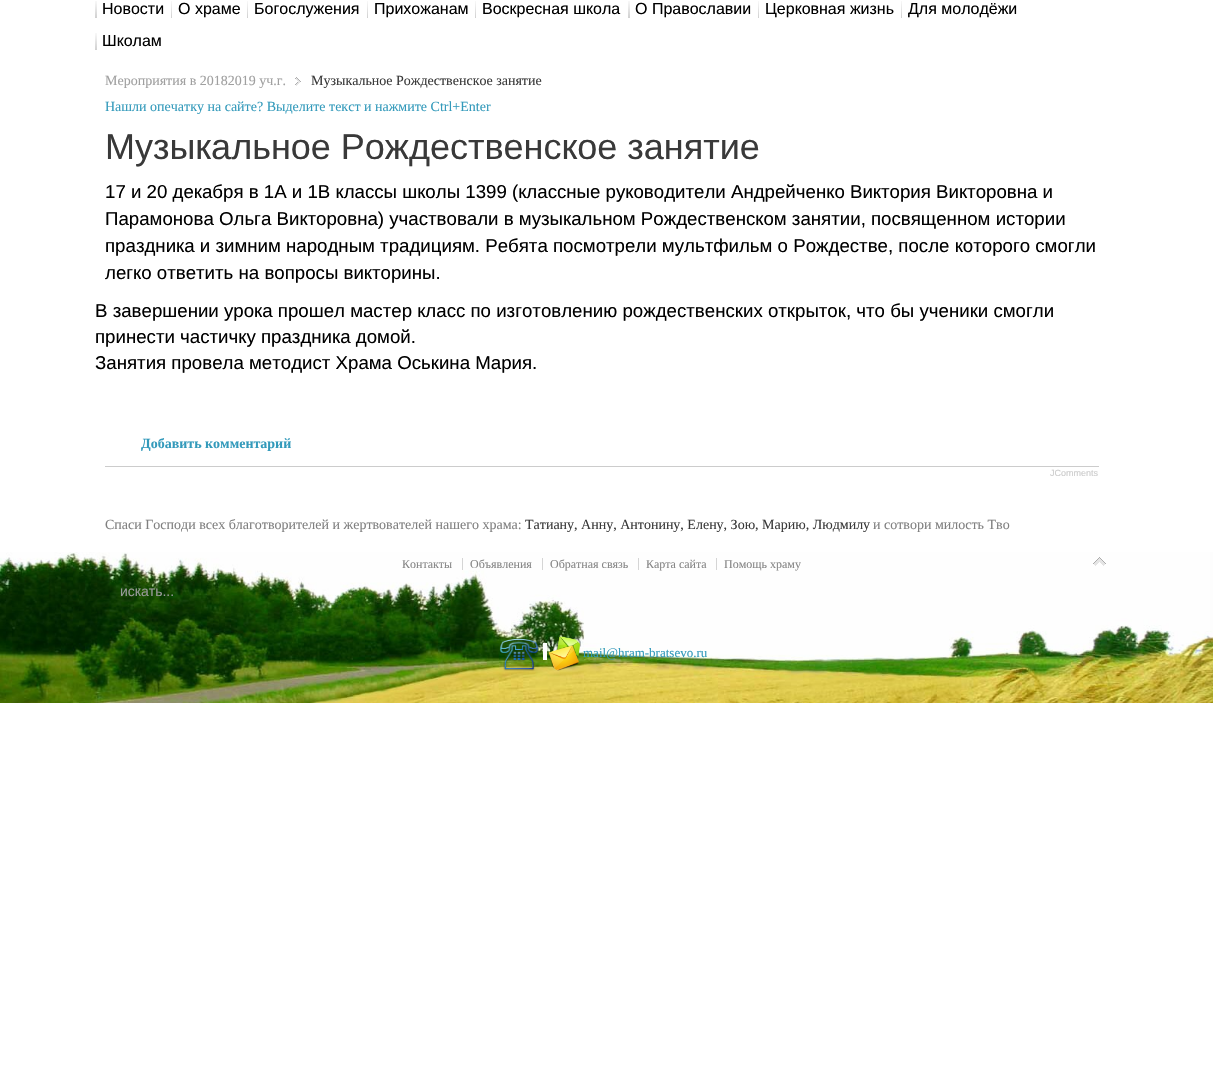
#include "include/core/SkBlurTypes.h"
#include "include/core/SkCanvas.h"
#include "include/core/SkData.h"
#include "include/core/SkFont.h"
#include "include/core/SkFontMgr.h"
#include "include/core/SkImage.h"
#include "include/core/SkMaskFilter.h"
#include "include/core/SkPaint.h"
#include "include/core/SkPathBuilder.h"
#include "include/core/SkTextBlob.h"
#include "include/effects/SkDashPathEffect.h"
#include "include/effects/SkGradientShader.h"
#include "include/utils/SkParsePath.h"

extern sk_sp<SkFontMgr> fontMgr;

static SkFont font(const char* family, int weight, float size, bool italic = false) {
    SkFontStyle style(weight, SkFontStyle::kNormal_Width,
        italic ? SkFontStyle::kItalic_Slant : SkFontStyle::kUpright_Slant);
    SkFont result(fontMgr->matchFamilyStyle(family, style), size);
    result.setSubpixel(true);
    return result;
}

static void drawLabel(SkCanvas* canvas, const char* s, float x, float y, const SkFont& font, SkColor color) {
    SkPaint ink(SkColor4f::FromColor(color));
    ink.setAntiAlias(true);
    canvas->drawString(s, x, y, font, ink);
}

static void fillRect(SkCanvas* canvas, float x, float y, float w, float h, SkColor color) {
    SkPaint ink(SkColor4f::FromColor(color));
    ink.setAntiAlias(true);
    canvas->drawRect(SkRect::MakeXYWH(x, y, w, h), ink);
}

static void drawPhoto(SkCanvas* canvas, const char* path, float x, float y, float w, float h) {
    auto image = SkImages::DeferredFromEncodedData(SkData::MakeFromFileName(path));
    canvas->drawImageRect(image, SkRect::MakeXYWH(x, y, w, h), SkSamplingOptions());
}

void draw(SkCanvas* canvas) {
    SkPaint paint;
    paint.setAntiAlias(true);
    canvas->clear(0xFFFFFFFF);
    drawPhoto(canvas, "assets/img1.png", 95, 1, 2, 17);
    SkFont font1 = font("Liberation Sans", 400, 16);
    drawLabel(canvas, "Новости", 102, 14, font1, 0xFF000000);
    drawPhoto(canvas, "assets/img2.png", 171, 1, 1, 17);
    drawLabel(canvas, "О храме", 178, 14, font1, 0xFF000000);
    drawPhoto(canvas, "assets/img2.png", 247, 1, 1, 17);
    drawLabel(canvas, "Богослужения", 254, 14, font1, 0xFF000000);
    drawPhoto(canvas, "assets/img2.png", 367, 1, 1, 17);
    drawLabel(canvas, "Прихожанам", 374, 14, font1, 0xFF000000);
    drawPhoto(canvas, "assets/img2.png", 475, 1, 1, 17);
    drawLabel(canvas, "Воскресная школа", 482, 14, font1, 0xFF000000);
    drawPhoto(canvas, "assets/img1.png", 628, 1, 2, 17);
    drawLabel(canvas, "О Православии", 635, 14, font1, 0xFF000000);
    drawPhoto(canvas, "assets/img2.png", 758, 1, 1, 17);
    drawLabel(canvas, "Церковная жизнь", 765, 14, font1, 0xFF000000);
    drawPhoto(canvas, "assets/img2.png", 901, 1, 1, 17);
    drawLabel(canvas, "Для молодёжи", 908, 14, font1, 0xFF000000);
    drawPhoto(canvas, "assets/img1.png", 95, 33, 2, 17);
    drawLabel(canvas, "Школам", 102, 46, font1, 0xFF000000);
    drawPhoto(canvas, "assets/img3.png", 295, 77, 6, 9);
    SkFont font2 = font("Liberation Serif", 400, 14);
    drawLabel(canvas, "Мероприятия в 20182019 уч.г.", 105, 85, font2, 0xFFA0A0A0);
    drawLabel(canvas, "Музыкальное Рождественское занятие", 311, 85, font2, 0xFF393939);
    drawLabel(canvas, "Нашли опечатку на сайте? Выделите текст и нажмите Ctrl+Enter", 105, 111, font2, 0xFF339ABB);
    SkFont font3 = font("Liberation Sans", 400, 36);
    drawLabel(canvas, "Музыкальное Рождественское занятие", 105, 159, font3, 0xFF393939);
    SkFont font4 = font("Liberation Sans", 400, 18.67f);
    drawLabel(canvas, "17 и 20 декабря в 1А и 1В классы школы 1399 (классные руководители Андрейченко Виктория Викторовна и", 105, 198, font4, 0xFF000000);
    drawLabel(canvas, "Парамонова Ольга Викторовна) участвовали в музыкальном Рождественском занятии, посвященном истории", 105, 225, font4, 0xFF000000);
    drawLabel(canvas, "праздника и зимним народным традициям. Ребята посмотрели мультфильм о Рождестве, после которого смогли", 105, 252, font4, 0xFF000000);
    drawLabel(canvas, "легко ответить на вопросы викторины.", 105, 279, font4, 0xFF000000);
    drawLabel(canvas, "В завершении урока прошел мастер класс по изготовлению рождественских открыток, что бы ученики смогли", 95, 317, font4, 0xFF000000);
    drawLabel(canvas, "принести частичку праздника домой.", 95, 343, font4, 0xFF000000);
    drawLabel(canvas, "Занятия провела методист Храма Оськина Мария.", 95, 369, font4, 0xFF000000);
    SkFont font5 = font("Liberation Serif", 700, 14);
    drawLabel(canvas, "Добавить комментарий", 141, 448, font5, 0xFF339ABB);
    fillRect(canvas, 105, 466, 994, 1, 0xFFCCCCCC);
    SkFont font6 = font("Liberation Sans", 400, 9);
    drawLabel(canvas, "JComments", 1050, 476, font6, 0xFFCCCCCC);
    drawLabel(canvas, "Спаси Господи всех благотворителей и жертвователей нашего храма:", 105, 529, font2, 0xFF808080);
    drawLabel(canvas, "Татиану, Анну, Антонину, Елену, Зою, Марию, Людмилу", 525, 529, font2, 0xFF393939);
    drawLabel(canvas, "и сотвори милость Тво", 873, 529, font2, 0xFF808080);
    drawPhoto(canvas, "assets/img4.png", 0, 552, 1213, 151);
    SkFont font7 = font("Liberation Serif", 400, 12);
    drawLabel(canvas, "Контакты", 402, 568, font7, 0xFF868686);
    fillRect(canvas, 462, 558, 1, 12, 0xFFD5D5D5);
    drawLabel(canvas, "Объявления", 470, 568, font7, 0xFF868686);
    fillRect(canvas, 542, 558, 1, 12, 0xFFD5D5D5);
    drawLabel(canvas, "Обратная связь", 550, 568, font7, 0xFF868686);
    fillRect(canvas, 638, 558, 1, 12, 0xFFD5D5D5);
    drawLabel(canvas, "Карта сайта", 646, 568, font7, 0xFF868686);
    fillRect(canvas, 716, 558, 1, 12, 0xFFD5D5D5);
    drawLabel(canvas, "Помощь храму", 724, 568, font7, 0xFF868686);
    drawPhoto(canvas, "assets/img5.png", 1093, 557, 13, 9);
    SkFont font8 = font("Liberation Sans", 400, 14);
    drawLabel(canvas, "искать...", 120, 596, font8, 0xFF999999);
    drawPhoto(canvas, "assets/img6.png", 499, 638, 40, 33);
    drawPhoto(canvas, "assets/img7.png", 548, 636, 32, 35);
    SkFont font9 = font("Liberation Serif", 400, 13);
    drawLabel(canvas, "mail@hram-bratsevo.ru", 583, 657, font9, 0xFF339ABB);
    fillRect(canvas, 543, 643, 4, 17, 0xFFFFFFFF);
}
